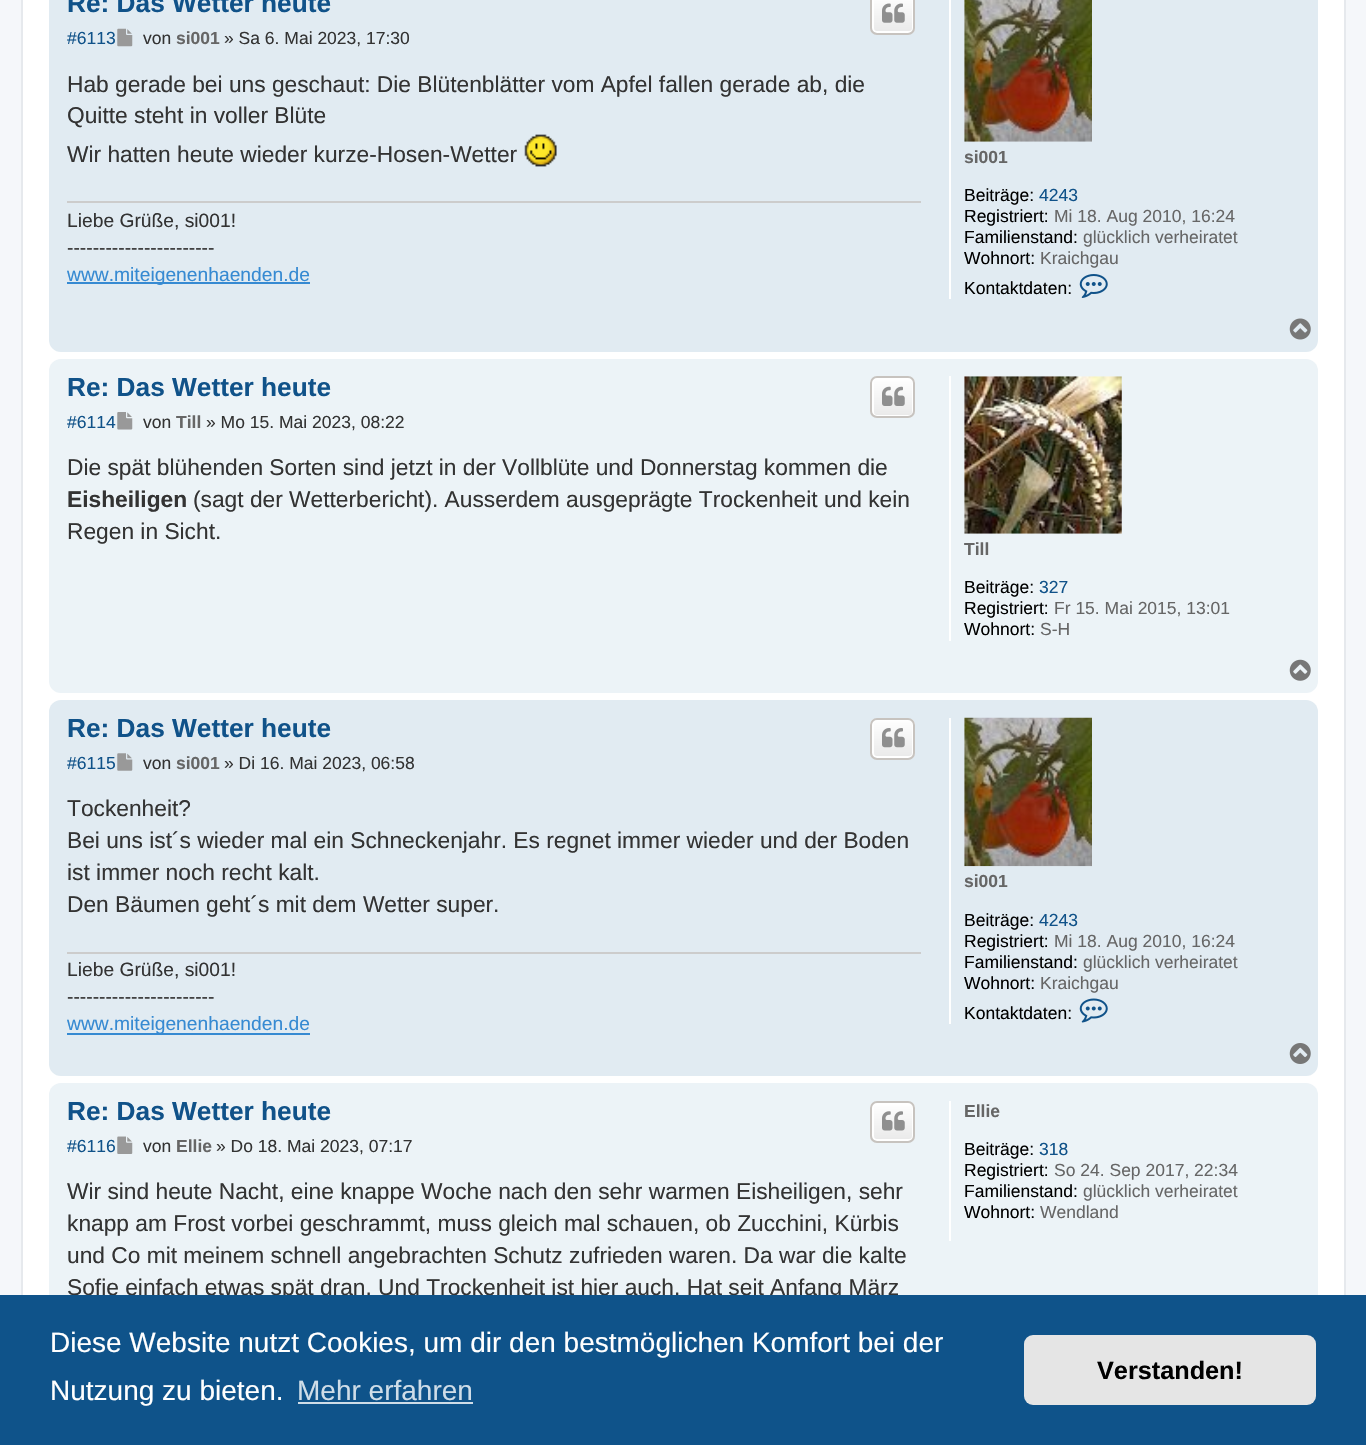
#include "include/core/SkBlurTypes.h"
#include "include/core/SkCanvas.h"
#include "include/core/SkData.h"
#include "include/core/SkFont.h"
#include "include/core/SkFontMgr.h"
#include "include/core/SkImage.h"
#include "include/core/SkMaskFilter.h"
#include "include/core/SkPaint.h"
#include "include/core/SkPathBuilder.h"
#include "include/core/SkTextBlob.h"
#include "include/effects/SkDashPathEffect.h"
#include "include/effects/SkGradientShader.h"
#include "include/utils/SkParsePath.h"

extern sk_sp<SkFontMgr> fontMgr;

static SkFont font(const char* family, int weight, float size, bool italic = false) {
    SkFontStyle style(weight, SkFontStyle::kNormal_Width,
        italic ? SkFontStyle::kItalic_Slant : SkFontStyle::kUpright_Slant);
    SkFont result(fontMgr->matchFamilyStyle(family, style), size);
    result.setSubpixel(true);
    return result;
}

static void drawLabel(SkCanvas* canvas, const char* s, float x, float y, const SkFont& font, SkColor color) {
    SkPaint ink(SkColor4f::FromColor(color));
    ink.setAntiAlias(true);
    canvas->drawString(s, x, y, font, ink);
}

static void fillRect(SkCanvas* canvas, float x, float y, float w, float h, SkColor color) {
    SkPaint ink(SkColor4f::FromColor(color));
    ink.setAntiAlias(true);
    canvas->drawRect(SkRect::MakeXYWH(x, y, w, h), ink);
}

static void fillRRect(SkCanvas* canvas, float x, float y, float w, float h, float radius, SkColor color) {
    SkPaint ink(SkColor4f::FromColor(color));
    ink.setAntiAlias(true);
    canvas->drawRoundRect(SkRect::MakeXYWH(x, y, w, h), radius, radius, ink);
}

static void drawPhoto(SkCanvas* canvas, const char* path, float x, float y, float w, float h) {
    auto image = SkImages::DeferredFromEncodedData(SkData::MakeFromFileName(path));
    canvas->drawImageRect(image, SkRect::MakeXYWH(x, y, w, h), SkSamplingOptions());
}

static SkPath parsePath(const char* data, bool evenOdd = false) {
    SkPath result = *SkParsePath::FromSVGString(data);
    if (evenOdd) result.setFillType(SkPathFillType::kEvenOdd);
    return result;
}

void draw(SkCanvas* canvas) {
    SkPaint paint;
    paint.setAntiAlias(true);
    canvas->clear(0xFFF5F7FA);
    fillRect(canvas, 23, 0, 1321, 1295, 0xFFFFFFFF);
    paint.setStroke(true);
    paint.setStrokeWidth(2);
    paint.setColor(0xFFE6E9ED);
    canvas->drawRect(SkRect::MakeXYWH(22, -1, 1323, 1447), paint);
    fillRRect(canvas, 49, -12, 1269, 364, 12, 0xFFE1EBF2);
    SkFont font1 = font("Liberation Sans", 700, 26.25f);
    drawLabel(canvas, "Re: Das Wetter heute", 67, 12, font1, 0xFF105289);
    canvas->save();
    canvas->clipPath(parsePath("M877-7H908C912-7 915-4 915 0V28C915 32 912 35 908 35H877C873 35 870 32 870 28V0C870-4 873-7 877-7Z"), true);
    paint.setStroke(false);
    {
        const SkColor colors[] = {0xFFFFFFFF, 0xFFE9E9E9};
        const float stops[] = {0, 1};
        const SkPoint ends[] = {{893, -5.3f}, {893, 33}};
        paint.setShader(SkGradientShader::MakeLinear(ends, colors, stops, 2, SkTileMode::kClamp));
        paint.setAlpha(255);
    }
    canvas->drawRect(SkRect::MakeXYWH(870, 0, 45, 33), paint);
    canvas->restore();
    paint.setStroke(true);
    paint.setShader(nullptr);
    paint.setColor(0xFFFFFFFF);
    canvas->drawRoundRect(SkRect::MakeXYWH(873, -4, 40, 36), 4, 4, paint);
    paint.setColor(0xFFC7C3BF);
    canvas->drawRoundRect(SkRect::MakeXYWH(871, -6, 43, 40), 6, 6, paint);
    drawPhoto(canvas, "assets/img1.png", 882, 3, 23, 20);
    SkFont font2 = font("Liberation Sans", 400, 17.5f);
    drawLabel(canvas, "#6113", 67, 44, font2, 0xFF105289);
    drawPhoto(canvas, "assets/img2.png", 117, 28, 16, 19);
    drawLabel(canvas, "von", 143, 44, font2, 0xFF333333);
    SkFont font3 = font("Liberation Sans", 700, 17.5f);
    drawLabel(canvas, "si001", 176, 44, font3, 0xFF666666);
    drawLabel(canvas, "» Sa 6. Mai 2023, 17:30", 224, 44, font2, 0xFF333333);
    SkFont font4 = font("Liberation Sans", 400, 22.75f);
    drawLabel(canvas, "Hab gerade bei uns geschaut: Die Blütenblätter vom Apfel fallen gerade ab, die", 67, 92, font4, 0xFF333333);
    drawLabel(canvas, "Quitte steht in voller Blüte", 67, 123, font4, 0xFF333333);
    drawLabel(canvas, "Wir hatten heute wieder kurze-Hosen-Wetter", 67, 162, font4, 0xFF333333);
    drawPhoto(canvas, "assets/img3.png", 524, 134, 33, 33);
    fillRect(canvas, 67, 201, 854, 2, 0xFFCCCCCC);
    SkFont font5 = font("Liberation Sans", 400, 19.25f);
    drawLabel(canvas, "Liebe Grüße, si001!", 67, 227, font5, 0xFF333333);
    drawLabel(canvas, "-----------------------", 67, 254, font5, 0xFF333333);
    fillRect(canvas, 67, 282, 243, 2, 0xFF368AD2);
    canvas->save();
    canvas->clipRect(SkRect::MakeXYWH(67, 203, 854, 86));
    drawLabel(canvas, "www.miteigenenhaenden.de", 67, 281, font5, 0xFF368AD2);
    canvas->restore();
    fillRect(canvas, 949, 0, 2, 299, 0xFFFFFFFF);
    drawPhoto(canvas, "assets/img4.png", 964, 0, 128, 142);
    drawLabel(canvas, "si001", 964, 163, font3, 0xFF666666);
    drawLabel(canvas, "Beiträge:", 964, 201, font2, 0xFF000000);
    drawLabel(canvas, "4243", 1039, 201, font2, 0xFF105289);
    drawLabel(canvas, "Registriert:", 964, 222, font2, 0xFF000000);
    drawLabel(canvas, "Mi 18. Aug 2010, 16:24", 1054, 222, font2, 0xFF666666);
    drawLabel(canvas, "Familienstand:", 964, 243, font2, 0xFF000000);
    drawLabel(canvas, "glücklich verheiratet", 1083, 243, font2, 0xFF666666);
    drawLabel(canvas, "Wohnort:", 964, 264, font2, 0xFF000000);
    drawLabel(canvas, "Kraichgau", 1040, 264, font2, 0xFF666666);
    drawLabel(canvas, "Kontaktdaten:", 964, 294, font2, 0xFF000000);
    drawPhoto(canvas, "assets/img5.png", 1079, 274, 29, 24);
    drawPhoto(canvas, "assets/img6.png", 1289, 318, 22, 22);
    fillRRect(canvas, 49, 359, 1269, 334, 12, 0xFFECF3F7);
    drawLabel(canvas, "Re: Das Wetter heute", 67, 396, font1, 0xFF105289);
    canvas->save();
    canvas->clipPath(parsePath("M877 376H908C912 376 915 379 915 383V411C915 415 912 418 908 418H877C873 418 870 415 870 411V383C870 379 873 376 877 376Z"), true);
    paint.setStroke(false);
    {
        const SkColor colors[] = {0xFFFFFFFF, 0xFFE9E9E9};
        const float stops[] = {0, 1};
        const SkPoint ends[] = {{893, 378}, {893, 417}};
        paint.setShader(SkGradientShader::MakeLinear(ends, colors, stops, 2, SkTileMode::kClamp));
        paint.setAlpha(255);
    }
    canvas->drawRect(SkRect::MakeXYWH(870, 378, 45, 39), paint);
    canvas->restore();
    paint.setStroke(true);
    paint.setShader(nullptr);
    paint.setColor(0xFFFFFFFF);
    canvas->drawRoundRect(SkRect::MakeXYWH(873, 379, 40, 37), 4, 4, paint);
    paint.setColor(0xFFC7C3BF);
    canvas->drawRoundRect(SkRect::MakeXYWH(871, 377, 43, 40), 6, 6, paint);
    drawPhoto(canvas, "assets/img7.png", 882, 386, 23, 20);
    drawLabel(canvas, "#6114", 67, 428, font2, 0xFF105289);
    drawPhoto(canvas, "assets/img8.png", 117, 412, 16, 18);
    drawLabel(canvas, "von", 143, 428, font2, 0xFF333333);
    drawLabel(canvas, "Till", 176, 428, font3, 0xFF666666);
    drawLabel(canvas, "» Mo 15. Mai 2023, 08:22", 206, 428, font2, 0xFF333333);
    drawLabel(canvas, "Die spät blühenden Sorten sind jetzt in der Vollblüte und Donnerstag kommen die", 67, 475, font4, 0xFF333333);
    SkFont font6 = font("Liberation Sans", 700, 22.75f);
    drawLabel(canvas, "Eisheiligen", 67, 507, font6, 0xFF333333);
    drawLabel(canvas, "(sagt der Wetterbericht). Ausserdem ausgeprägte Trockenheit und kein", 193, 507, font4, 0xFF333333);
    drawLabel(canvas, "Regen in Sicht.", 67, 539, font4, 0xFF333333);
    fillRect(canvas, 949, 376, 2, 265, 0xFFFFFFFF);
    drawPhoto(canvas, "assets/img9.png", 964, 376, 158, 158);
    drawLabel(canvas, "Till", 964, 555, font3, 0xFF666666);
    drawLabel(canvas, "Beiträge:", 964, 593, font2, 0xFF000000);
    drawLabel(canvas, "327", 1039, 593, font2, 0xFF105289);
    drawLabel(canvas, "Registriert:", 964, 614, font2, 0xFF000000);
    drawLabel(canvas, "Fr 15. Mai 2015, 13:01", 1054, 614, font2, 0xFF666666);
    drawLabel(canvas, "Wohnort:", 964, 635, font2, 0xFF000000);
    drawLabel(canvas, "S-H", 1040, 635, font2, 0xFF666666);
    drawPhoto(canvas, "assets/img10.png", 1289, 659, 22, 22);
    fillRRect(canvas, 49, 700, 1269, 376, 12, 0xFFE1EBF2);
    drawLabel(canvas, "Re: Das Wetter heute", 67, 737, font1, 0xFF105289);
    canvas->save();
    canvas->clipPath(parsePath("M877 718H908C912 718 915 721 915 725V753C915 757 912 760 908 760H877C873 760 870 757 870 753V725C870 721 873 718 877 718Z"), true);
    paint.setStroke(false);
    {
        const SkColor colors[] = {0xFFFFFFFF, 0xFFE9E9E9};
        const float stops[] = {0, 1};
        const SkPoint ends[] = {{893, 719}, {893, 758}};
        paint.setShader(SkGradientShader::MakeLinear(ends, colors, stops, 2, SkTileMode::kClamp));
        paint.setAlpha(255);
    }
    canvas->drawRect(SkRect::MakeXYWH(870, 719, 45, 39), paint);
    canvas->restore();
    paint.setStroke(true);
    paint.setShader(nullptr);
    paint.setColor(0xFFFFFFFF);
    canvas->drawRoundRect(SkRect::MakeXYWH(873, 720, 40, 37), 4, 4, paint);
    paint.setColor(0xFFC7C3BF);
    canvas->drawRoundRect(SkRect::MakeXYWH(871, 719, 43, 40), 6, 6, paint);
    drawPhoto(canvas, "assets/img11.png", 882, 728, 23, 20);
    drawLabel(canvas, "#6115", 67, 769, font2, 0xFF105289);
    drawPhoto(canvas, "assets/img12.png", 117, 753, 16, 18);
    drawLabel(canvas, "von", 143, 769, font2, 0xFF333333);
    drawLabel(canvas, "si001", 176, 769, font3, 0xFF666666);
    drawLabel(canvas, "» Di 16. Mai 2023, 06:58", 224, 769, font2, 0xFF333333);
    drawLabel(canvas, "Tockenheit?", 67, 816, font4, 0xFF333333);
    drawLabel(canvas, "Bei uns ist´s wieder mal ein Schneckenjahr. Es regnet immer wieder und der Boden", 67, 848, font4, 0xFF333333);
    drawLabel(canvas, "ist immer noch recht kalt.", 67, 880, font4, 0xFF333333);
    drawLabel(canvas, "Den Bäumen geht´s mit dem Wetter super.", 67, 912, font4, 0xFF333333);
    fillRect(canvas, 67, 952, 854, 2, 0xFFCCCCCC);
    drawLabel(canvas, "Liebe Grüße, si001!", 67, 976, font5, 0xFF333333);
    drawLabel(canvas, "-----------------------", 67, 1003, font5, 0xFF333333);
    fillRect(canvas, 67, 1033, 243, 2, 0xFF368AD2);
    canvas->save();
    canvas->clipRect(SkRect::MakeXYWH(67, 954, 854, 84));
    drawLabel(canvas, "www.miteigenenhaenden.de", 67, 1030, font5, 0xFF368AD2);
    canvas->restore();
    fillRect(canvas, 949, 718, 2, 306, 0xFFFFFFFF);
    drawPhoto(canvas, "assets/img13.png", 964, 717, 128, 150);
    drawLabel(canvas, "si001", 964, 887, font3, 0xFF666666);
    drawLabel(canvas, "Beiträge:", 964, 926, font2, 0xFF000000);
    drawLabel(canvas, "4243", 1039, 926, font2, 0xFF105289);
    drawLabel(canvas, "Registriert:", 964, 947, font2, 0xFF000000);
    drawLabel(canvas, "Mi 18. Aug 2010, 16:24", 1054, 947, font2, 0xFF666666);
    drawLabel(canvas, "Familienstand:", 964, 968, font2, 0xFF000000);
    drawLabel(canvas, "glücklich verheiratet", 1083, 968, font2, 0xFF666666);
    drawLabel(canvas, "Wohnort:", 964, 989, font2, 0xFF000000);
    drawLabel(canvas, "Kraichgau", 1040, 989, font2, 0xFF666666);
    drawLabel(canvas, "Kontaktdaten:", 964, 1019, font2, 0xFF000000);
    drawPhoto(canvas, "assets/img14.png", 1079, 998, 29, 25);
    drawPhoto(canvas, "assets/img15.png", 1289, 1043, 22, 21);
    fillRRect(canvas, 49, 1083, 1269, 289, 12, 0xFFECF3F7);
    drawLabel(canvas, "Re: Das Wetter heute", 67, 1120, font1, 0xFF105289);
    canvas->save();
    canvas->clipPath(parsePath("M877 1101H908C912 1101 915 1104 915 1108V1136C915 1140 912 1143 908 1143H877C873 1143 870 1140 870 1136V1108C870 1104 873 1101 877 1101Z"), true);
    paint.setStroke(false);
    {
        const SkColor colors[] = {0xFFFFFFFF, 0xFFE9E9E9};
        const float stops[] = {0, 1};
        const SkPoint ends[] = {{893, 1103}, {893, 1141}};
        paint.setShader(SkGradientShader::MakeLinear(ends, colors, stops, 2, SkTileMode::kClamp));
        paint.setAlpha(255);
    }
    canvas->drawRect(SkRect::MakeXYWH(870, 1103, 45, 38), paint);
    canvas->restore();
    paint.setStroke(true);
    paint.setShader(nullptr);
    paint.setColor(0xFFFFFFFF);
    canvas->drawRoundRect(SkRect::MakeXYWH(873, 1104, 40, 36), 4, 4, paint);
    paint.setColor(0xFFC7C3BF);
    canvas->drawRoundRect(SkRect::MakeXYWH(871, 1102, 43, 40), 6, 6, paint);
    drawPhoto(canvas, "assets/img16.png", 882, 1111, 23, 20);
    drawLabel(canvas, "#6116", 67, 1152, font2, 0xFF105289);
    drawPhoto(canvas, "assets/img17.png", 117, 1136, 16, 18);
    drawLabel(canvas, "von", 143, 1152, font2, 0xFF333333);
    drawLabel(canvas, "Ellie", 176, 1152, font3, 0xFF666666);
    drawLabel(canvas, "» Do 18. Mai 2023, 07:17", 216, 1152, font2, 0xFF333333);
    drawLabel(canvas, "Wir sind heute Nacht, eine knappe Woche nach den sehr warmen Eisheiligen, sehr", 67, 1199, font4, 0xFF333333);
    drawLabel(canvas, "knapp am Frost vorbei geschrammt, muss gleich mal schauen, ob Zucchini, Kürbis", 67, 1231, font4, 0xFF333333);
    drawLabel(canvas, "und Co mit meinem schnell angebrachten Schutz zufrieden waren. Da war die kalte", 67, 1263, font4, 0xFF333333);
    drawLabel(canvas, "Sofie einfach etwas spät dran. Und Trockenheit ist hier auch. Hat seit Anfang März", 67, 1295, font4, 0xFF333333);
    fillRect(canvas, 949, 1101, 2, 140, 0xFFFFFFFF);
    drawLabel(canvas, "Ellie", 964, 1117, font3, 0xFF666666);
    drawLabel(canvas, "Beiträge:", 964, 1155, font2, 0xFF000000);
    drawLabel(canvas, "318", 1039, 1155, font2, 0xFF105289);
    drawLabel(canvas, "Registriert:", 964, 1176, font2, 0xFF000000);
    drawLabel(canvas, "So 24. Sep 2017, 22:34", 1054, 1176, font2, 0xFF666666);
    drawLabel(canvas, "Familienstand:", 964, 1197, font2, 0xFF000000);
    drawLabel(canvas, "glücklich verheiratet", 1083, 1197, font2, 0xFF666666);
    drawLabel(canvas, "Wohnort:", 964, 1218, font2, 0xFF000000);
    drawLabel(canvas, "Wendland", 1040, 1218, font2, 0xFF666666);
    fillRect(canvas, 0, 1295, 1366, 150, 0xFF0F538A);
    SkFont font7 = font("Liberation Sans", 400, 28);
    drawLabel(canvas, "Diese Website nutzt Cookies, um dir den bestmöglichen Komfort bei der", 50, 1352, font7, 0xFFFFFFFF);
    drawLabel(canvas, "Nutzung zu bieten.", 50, 1400, font7, 0xFFFFFFFF);
    drawLabel(canvas, "Mehr erfahren", 297, 1400, font7, 0xFFCFDDE8);
    fillRect(canvas, 298, 1402, 175, 2, 0xFFCFDDE8);
    fillRRect(canvas, 1024, 1335, 292, 70, 9, 0xFFE5E5E5);
    SkFont font8 = font("Liberation Sans", 700, 25.25f);
    drawLabel(canvas, "Verstanden!", 1097, 1379, font8, 0xFF000000);
}
